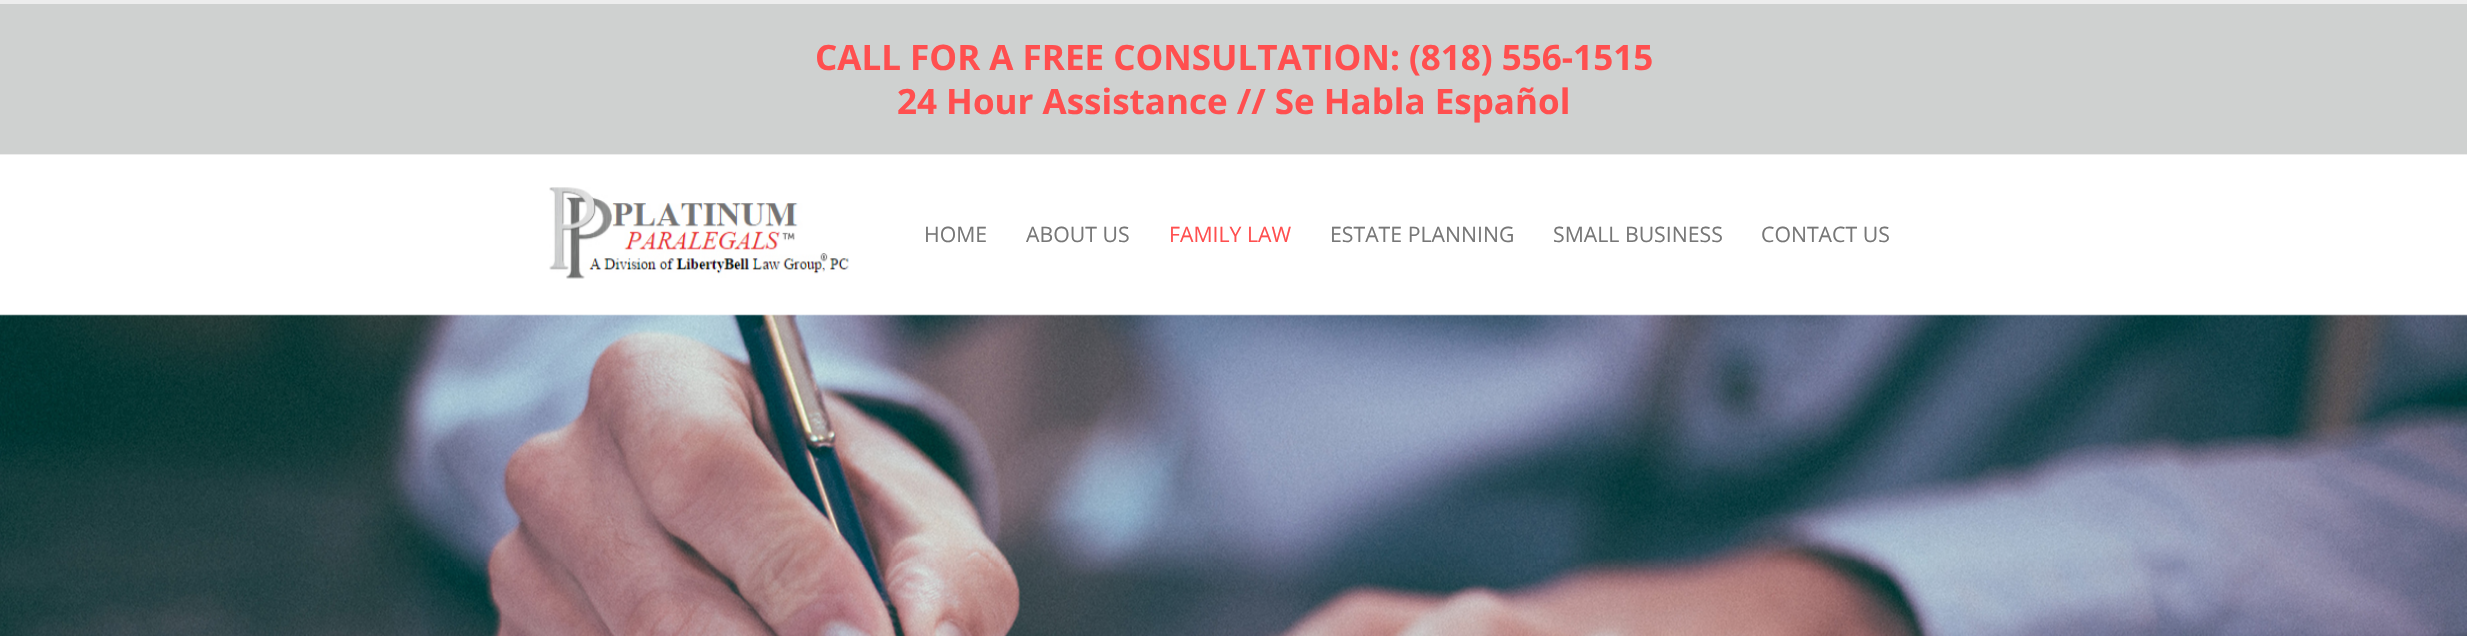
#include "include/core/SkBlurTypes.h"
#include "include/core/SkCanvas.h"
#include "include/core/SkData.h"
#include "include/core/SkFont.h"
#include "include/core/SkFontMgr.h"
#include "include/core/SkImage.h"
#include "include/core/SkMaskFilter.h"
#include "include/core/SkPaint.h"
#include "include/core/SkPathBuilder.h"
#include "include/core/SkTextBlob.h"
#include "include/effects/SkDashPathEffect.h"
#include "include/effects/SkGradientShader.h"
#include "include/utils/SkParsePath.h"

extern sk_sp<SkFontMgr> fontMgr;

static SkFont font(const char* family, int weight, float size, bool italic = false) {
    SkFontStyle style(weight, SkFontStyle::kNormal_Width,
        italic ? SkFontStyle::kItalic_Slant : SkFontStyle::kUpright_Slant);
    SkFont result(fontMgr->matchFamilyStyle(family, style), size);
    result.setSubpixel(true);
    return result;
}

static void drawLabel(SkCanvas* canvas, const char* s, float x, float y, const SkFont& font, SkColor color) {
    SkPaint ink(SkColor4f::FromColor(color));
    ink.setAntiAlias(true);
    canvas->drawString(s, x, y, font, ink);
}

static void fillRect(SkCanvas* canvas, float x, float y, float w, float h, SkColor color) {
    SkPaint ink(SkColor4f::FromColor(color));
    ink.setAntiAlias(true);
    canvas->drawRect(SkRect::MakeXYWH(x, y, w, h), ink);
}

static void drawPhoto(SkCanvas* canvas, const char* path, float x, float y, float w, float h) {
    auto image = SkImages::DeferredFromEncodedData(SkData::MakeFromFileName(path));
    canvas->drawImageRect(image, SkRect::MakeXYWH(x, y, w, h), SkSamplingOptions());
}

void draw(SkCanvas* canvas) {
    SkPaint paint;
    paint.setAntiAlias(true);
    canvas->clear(0xFFFFFFFF);
    fillRect(canvas, 0, 0, 2467, 4, 0xFFEDEDED);
    fillRect(canvas, 0, 4, 2467, 150, 0xFFCFD1D0);
    fillRect(canvas, 0, 154, 2467, 1, 0xFFEDEDED);
    SkFont font1 = font("Open Sans", 700, 35);
    drawLabel(canvas, "CALL FOR A FREE CONSULTATION: (818) 556-1515", 815, 70, font1, 0xFFFF4F4F);
    drawLabel(canvas, "24 Hour Assistance // Se Habla Español", 897, 114, font1, 0xFFFF4F4F);
    drawPhoto(canvas, "assets/img1.png", 549, 187, 300, 92);
    SkFont font2 = font("Open Sans", 400, 21.25f);
    drawLabel(canvas, "HOME", 924, 242, font2, 0xFF777777);
    drawLabel(canvas, "ABOUT US", 1026, 242, font2, 0xFF777777);
    drawLabel(canvas, "FAMILY LAW", 1169, 242, font2, 0xFFFF4F4F);
    drawLabel(canvas, "ESTATE PLANNING", 1330, 242, font2, 0xFF777777);
    drawLabel(canvas, "SMALL BUSINESS", 1553, 242, font2, 0xFF777777);
    drawLabel(canvas, "CONTACT US", 1761, 242, font2, 0xFF777777);
    drawPhoto(canvas, "assets/img2.png", 0, 314, 2467, 322);
}
